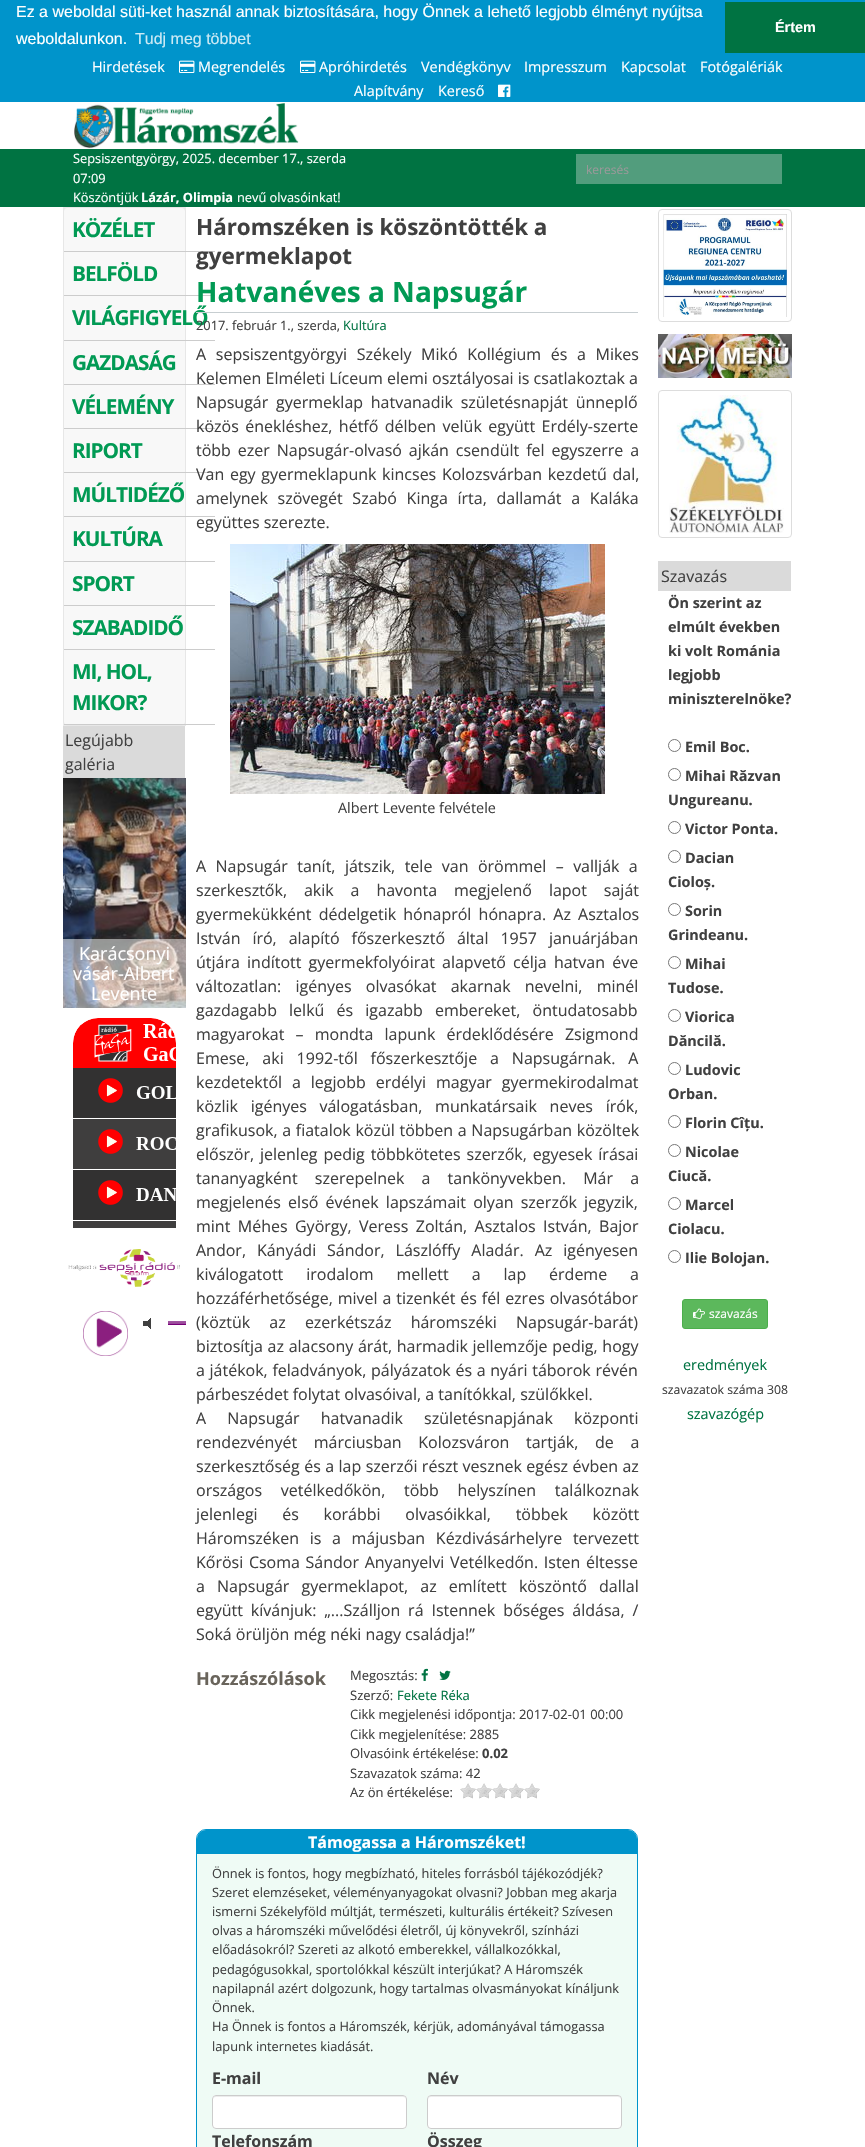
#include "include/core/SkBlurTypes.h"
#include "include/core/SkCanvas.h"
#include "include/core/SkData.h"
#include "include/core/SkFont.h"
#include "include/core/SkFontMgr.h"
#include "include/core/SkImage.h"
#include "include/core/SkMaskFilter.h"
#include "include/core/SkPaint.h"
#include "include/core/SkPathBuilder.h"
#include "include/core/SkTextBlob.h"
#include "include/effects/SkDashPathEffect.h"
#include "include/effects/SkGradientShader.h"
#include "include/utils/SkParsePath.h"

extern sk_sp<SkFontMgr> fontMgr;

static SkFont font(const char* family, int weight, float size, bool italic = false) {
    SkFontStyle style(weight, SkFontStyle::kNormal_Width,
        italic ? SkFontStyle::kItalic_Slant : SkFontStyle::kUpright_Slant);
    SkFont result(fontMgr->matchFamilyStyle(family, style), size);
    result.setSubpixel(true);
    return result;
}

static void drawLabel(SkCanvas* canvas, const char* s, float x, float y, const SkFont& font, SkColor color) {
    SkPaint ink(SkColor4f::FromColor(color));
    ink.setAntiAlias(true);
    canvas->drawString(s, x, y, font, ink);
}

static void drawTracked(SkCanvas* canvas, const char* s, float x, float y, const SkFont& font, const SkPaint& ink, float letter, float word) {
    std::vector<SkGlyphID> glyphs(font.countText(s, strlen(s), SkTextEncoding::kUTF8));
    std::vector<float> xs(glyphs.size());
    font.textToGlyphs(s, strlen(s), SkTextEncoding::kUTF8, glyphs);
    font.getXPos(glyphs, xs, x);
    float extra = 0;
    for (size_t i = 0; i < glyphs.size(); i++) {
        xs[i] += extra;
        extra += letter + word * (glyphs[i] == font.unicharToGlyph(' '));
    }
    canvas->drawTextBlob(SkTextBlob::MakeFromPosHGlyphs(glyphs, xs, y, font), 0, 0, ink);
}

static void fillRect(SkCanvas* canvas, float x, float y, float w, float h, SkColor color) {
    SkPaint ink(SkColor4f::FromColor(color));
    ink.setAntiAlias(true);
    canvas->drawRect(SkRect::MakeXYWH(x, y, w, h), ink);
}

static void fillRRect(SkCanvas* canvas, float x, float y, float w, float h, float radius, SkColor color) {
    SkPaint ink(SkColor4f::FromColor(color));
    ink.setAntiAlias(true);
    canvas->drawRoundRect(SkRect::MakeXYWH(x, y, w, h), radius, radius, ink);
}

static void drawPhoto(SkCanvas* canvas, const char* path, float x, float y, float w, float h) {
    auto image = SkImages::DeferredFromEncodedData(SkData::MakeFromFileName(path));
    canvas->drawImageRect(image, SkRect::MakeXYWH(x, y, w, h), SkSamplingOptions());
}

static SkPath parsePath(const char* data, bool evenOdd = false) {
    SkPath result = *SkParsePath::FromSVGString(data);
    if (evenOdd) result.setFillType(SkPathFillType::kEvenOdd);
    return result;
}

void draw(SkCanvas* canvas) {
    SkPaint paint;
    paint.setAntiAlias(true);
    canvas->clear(0xFF0094CB);
    SkFont font1 = font("Liberation Sans", 400, 16);
    drawLabel(canvas, "Ez a weboldal süti-ket használ annak biztosítására, hogy Önnek a lehető legjobb élményt nyújtsa", 16, 17, font1, 0xFFFFFFFF);
    drawLabel(canvas, "weboldalunkon.", 16, 44, font1, 0xFFFFFFFF);
    drawLabel(canvas, "Tudj meg többet", 135, 44, font1, 0xFFCCEAF5);
    fillRect(canvas, 725, 2, 140, 51, 0xFF007342);
    SkFont font2 = font("Liberation Sans", 700, 14.4f);
    drawLabel(canvas, "Értem", 775, 32, font2, 0xFFFFFFFF);
    SkFont font3 = font("Open Sans", 400, 14.4f);
    drawLabel(canvas, "Hirdetések", 92, 72, font3, 0xFFFFFFFF);
    drawPhoto(canvas, "assets/img1.png", 179, 60, 16, 13);
    drawLabel(canvas, "Megrendelés", 198, 72, font3, 0xFFFFFFFF);
    drawPhoto(canvas, "assets/img1.png", 300, 60, 16, 13);
    drawLabel(canvas, "Apróhirdetés", 319, 72, font3, 0xFFFFFFFF);
    drawLabel(canvas, "Vendégkönyv", 421, 72, font3, 0xFFFFFFFF);
    drawLabel(canvas, "Impresszum", 524, 72, font3, 0xFFFFFFFF);
    drawLabel(canvas, "Kapcsolat", 621, 72, font3, 0xFFFFFFFF);
    drawLabel(canvas, "Fotógalériák", 700, 72, font3, 0xFFFFFFFF);
    drawLabel(canvas, "Alapítvány", 354, 96, font3, 0xFFFFFFFF);
    drawLabel(canvas, "Kereső", 438, 96, font3, 0xFFFFFFFF);
    drawPhoto(canvas, "assets/img2.png", 498, 84, 13, 13);
    fillRect(canvas, 0, 102, 865, 47, 0xFFFFFFFF);
    drawPhoto(canvas, "assets/img3.png", 74, 103, 225, 46);
    fillRect(canvas, 0, 149, 865, 58, 0xFF007342);
    SkFont font4 = font("Open Sans", 400, 12.8f);
    drawLabel(canvas, "Sepsiszentgyörgy, 2025. december 17., szerda", 73, 163, font4, 0xFFFFFFFF);
    drawLabel(canvas, "07:09", 73, 183, font4, 0xFFFFFFFF);
    drawLabel(canvas, "Köszöntjük", 73, 202, font4, 0xFFFFFFFF);
    SkFont font5 = font("Open Sans", 700, 12.8f);
    drawLabel(canvas, "Lázár, Olimpia", 141, 202, font5, 0xFFFFFFFF);
    drawLabel(canvas, "nevű olvasóinkat!", 237, 202, font4, 0xFFFFFFFF);
    fillRect(canvas, 576, 154, 206, 30, 0xFF529D7D);
    SkFont font6 = font("Open Sans", 400, 12);
    drawLabel(canvas, "keresés", 586, 174, font6, 0xFF999999);
    fillRect(canvas, 0, 207, 865, 1940, 0xFFFFFFFF);
    fillRect(canvas, 63, 207, 123, 519, 0xFFEAEAEA);
    paint.setColor(0xFFF8F8F8);
    canvas->drawRoundRect(SkRect::MakeXYWH(63.5f, 207.5f, 122, 518), 3.5f, 3.5f, paint);
    paint.setStroke(true);
    paint.setStrokeWidth(1);
    paint.setColor(0xFFE7E7E7);
    canvas->drawRoundRect(SkRect::MakeXYWH(63.5f, 207.5f, 122, 518), 3.5f, 3.5f, paint);
    fillRect(canvas, 64, 251, 151, 1, 0xFFCCCCCC);
    SkFont font7 = font("Open Sans", 700, 20.75f);
    paint.setStroke(false);
    paint.setColor(0xFF019A54);
    drawTracked(canvas, "KÖZÉLET", 72, 237, font7, paint, -1, 0);
    fillRect(canvas, 64, 295, 151, 1, 0xFFCCCCCC);
    drawTracked(canvas, "BELFÖLD", 72, 281, font7, paint, -1, 0);
    fillRect(canvas, 64, 340, 151, 1, 0xFFCCCCCC);
    drawTracked(canvas, "VILÁGFIGYELŐ", 72, 325, font7, paint, -1, 0);
    fillRect(canvas, 64, 384, 151, 1, 0xFFCCCCCC);
    drawTracked(canvas, "GAZDASÁG", 72, 370, font7, paint, -1, 0);
    fillRect(canvas, 64, 428, 151, 1, 0xFFCCCCCC);
    drawTracked(canvas, "VÉLEMÉNY", 72, 414, font7, paint, -1, 0);
    fillRect(canvas, 64, 472, 151, 1, 0xFFCCCCCC);
    drawTracked(canvas, "RIPORT", 72, 458, font7, paint, -1, 0);
    fillRect(canvas, 64, 516, 151, 1, 0xFFCCCCCC);
    drawTracked(canvas, "MÚLTIDÉZŐ", 72, 502, font7, paint, -1, 0);
    fillRect(canvas, 64, 561, 151, 1, 0xFFCCCCCC);
    drawTracked(canvas, "KULTÚRA", 72, 546, font7, paint, -1, 0);
    fillRect(canvas, 64, 605, 151, 1, 0xFFCCCCCC);
    drawTracked(canvas, "SPORT", 72, 591, font7, paint, -1, 0);
    fillRect(canvas, 64, 649, 151, 1, 0xFFCCCCCC);
    drawTracked(canvas, "SZABADIDŐ", 72, 635, font7, paint, -1, 0);
    fillRect(canvas, 64, 724, 151, 1, 0xFFCCCCCC);
    drawTracked(canvas, "MI, HOL,", 72, 679, font7, paint, -1, 0);
    drawTracked(canvas, "MIKOR?", 72, 710, font7, paint, -1, 0);
    fillRect(canvas, 63, 726, 122, 52, 0xFFDADADA);
    SkFont font8 = font("Open Sans", 400, 16);
    drawLabel(canvas, "Legújabb", 65, 746, font8, 0xFF404040);
    drawLabel(canvas, "galéria", 65, 770, font8, 0xFF404040);
    drawPhoto(canvas, "assets/img4.png", 63, 778, 123, 230);
    fillRect(canvas, 63, 939, 123, 69, 0x80FFFFFF);
    SkFont font9 = font("Open Sans", 400, 18);
    drawLabel(canvas, "Karácsonyi", 79, 960, font9, 0xFFFFFFFF);
    drawLabel(canvas, "vásár-Albert", 73, 980, font9, 0xFFFFFFFF);
    drawLabel(canvas, "Levente", 91, 1000, font9, 0xFFFFFFFF);
    drawPhoto(canvas, "assets/img5.png", 73, 1018, 103, 210);
    drawPhoto(canvas, "assets/img6.png", 68, 1249, 118, 107);
    fillRect(canvas, 196, 312, 442, 1, 0xFFC7CED1);
    SkFont font10 = font("Open Sans", 700, 22.4f);
    drawLabel(canvas, "Háromszéken is köszöntötték a", 196, 235, font10, 0xFF404040);
    drawLabel(canvas, "gyermeklapot", 196, 264, font10, 0xFF404040);
    SkFont font11 = font("Open Sans", 700, 28);
    drawLabel(canvas, "Hatvanéves a Napsugár", 196, 302, font11, 0xFF019A54);
    drawLabel(canvas, "2017. február 1., szerda,", 196, 330, font4, 0xFF404040);
    drawLabel(canvas, "Kultúra", 343, 330, font4, 0xFF007342);
    paint.setColor(0xFF404040);
    drawTracked(canvas, "A sepsiszentgyörgyi Székely Mikó Kollégium és a Mikes", 196, 360, font8, paint, 0, 5.5f);
    drawLabel(canvas, "Kelemen Elméleti Líceum elemi osztályosai is csatlakoztak a", 196, 384, font8, 0xFF404040);
    drawTracked(canvas, "Napsugár gyermeklap hatvanadik születésnapját ünneplő", 196, 408, font8, paint, 0, 3.5f);
    drawTracked(canvas, "közös énekléshez, hétfő délben velük együtt Erdély-szerte", 196, 432, font8, paint, 0, 2.25f);
    drawTracked(canvas, "több ezer Napsugár-olvasó ajkán csendült fel egyszerre a", 196, 456, font8, paint, 0, 2.75f);
    drawTracked(canvas, "Van egy gyermeklapunk kincses Kolozsvárban kezdetű dal,", 196, 480, font8, paint, 0, 1.5f);
    drawTracked(canvas, "amelynek szövegét Szabó Kinga írta, dallamát a Kaláka", 196, 504, font8, paint, 0, 5.5f);
    drawLabel(canvas, "együttes szerezte.", 196, 528, font8, 0xFF404040);
    drawPhoto(canvas, "assets/img7.png", 230, 544, 375, 250);
    drawLabel(canvas, "Albert Levente felvétele", 338, 813, font3, 0xFF404040);
    drawTracked(canvas, "A Napsugár tanít, játszik, tele van örömmel – vallják a", 196, 872, font8, paint, 0, 5.25f);
    drawTracked(canvas, "szerkesztők, akik a havonta megjelenő lapot saját", 196, 896, font8, paint, 0, 12.75f);
    drawTracked(canvas, "gyermekükként dédelgetik hónapról hónapra. Az Asztalos", 196, 920, font8, paint, 0, 3);
    drawTracked(canvas, "István író, alapító főszerkesztő által 1957 januárjában", 196, 944, font8, paint, 0, 7.75f);
    drawTracked(canvas, "útjára indított gyermekfolyóirat alapvető célja hatvan éve", 196, 968, font8, paint, 0, 3);
    drawTracked(canvas, "változatlan: igényes olvasókat akarnak nevelni, minél", 196, 992, font8, paint, 0, 10);
    drawTracked(canvas, "gazdagabb lelkű és igazabb embereket, öntudatosabb", 196, 1016, font8, paint, 0, 8);
    drawTracked(canvas, "magyarokat – mondta lapunk érdeklődésére Zsigmond", 196, 1040, font8, paint, 0, 7);
    drawTracked(canvas, "Emese, aki 1992-től főszerkesztője a Napsugárnak. A", 196, 1064, font8, paint, 0, 8.75f);
    drawTracked(canvas, "kezdetektől a legjobb erdélyi magyar gyermekirodalmat", 196, 1088, font8, paint, 0, 5.75f);
    drawTracked(canvas, "közlik igényes válogatásban, munkatársaik neves írók,", 196, 1112, font8, paint, 0, 8.5f);
    drawTracked(canvas, "grafikusok, a fiatalok közül többen a Napsugárban közöltek", 196, 1136, font8, paint, 0, 0.5f);
    drawTracked(canvas, "először, jelenleg pedig többkötetes szerzők, egyesek írásai", 196, 1160, font8, paint, 0, 1.75f);
    drawTracked(canvas, "tananyagként szerepelnek a tankönyvekben. Már a", 196, 1184, font8, paint, 0, 13);
    drawTracked(canvas, "megjelenés első évének lapszámait olyan szerzők jegyzik,", 196, 1208, font8, paint, 0, 3);
    drawTracked(canvas, "mint Méhes György, Veress Zoltán, Asztalos István, Bajor", 196, 1232, font8, paint, 0, 3.25f);
    drawTracked(canvas, "Andor, Kányádi Sándor, Lászlóffy Aladár. Az igényesen", 196, 1256, font8, paint, 0, 6.75f);
    drawTracked(canvas, "kiválogatott irodalom mellett a lap érdeme a", 196, 1280, font8, paint, 0, 18.75f);
    drawTracked(canvas, "hozzáférhetősége, mivel a tizenkét és fél ezres olvasótábor", 196, 1304, font8, paint, 0, 0.75f);
    drawTracked(canvas, "(köztük az ezerkétszáz háromszéki Napsugár-barát)", 196, 1328, font8, paint, 0, 15);
    drawTracked(canvas, "biztosítja az alacsony árát, harmadik jellemzője pedig, hogy", 196, 1352, font8, paint, 0, 0.5f);
    drawTracked(canvas, "a játékok, feladványok, pályázatok és a nyári táborok révén", 196, 1376, font8, paint, 0, 0.5f);
    drawLabel(canvas, "párbeszédet folytat olvasóival, a tanítókkal, szülőkkel.", 196, 1400, font8, 0xFF404040);
    drawTracked(canvas, "A Napsugár hatvanadik születésnapjának központi", 196, 1424, font8, paint, 0, 17);
    drawTracked(canvas, "rendezvényét márciusban Kolozsváron tartják, de a", 196, 1448, font8, paint, 0, 12.5f);
    drawTracked(canvas, "szerkesztőség és a lap szerzői részt vesznek egész évben az", 196, 1472, font8, paint, 0, 0.25f);
    drawTracked(canvas, "országos vetélkedőkön, több helyszínen találkoznak", 196, 1496, font8, paint, 0, 14.5f);
    drawTracked(canvas, "jelenlegi és korábbi olvasóikkal, többek között", 196, 1520, font8, paint, 0, 20.5f);
    drawTracked(canvas, "Háromszéken is a májusban Kézdivásárhelyre tervezett", 196, 1544, font8, paint, 0, 6.5f);
    drawTracked(canvas, "Kőrösi Csoma Sándor Anyanyelvi Vetélkedőn. Isten éltesse", 196, 1568, font8, paint, 0, 1.5f);
    drawTracked(canvas, "a Napsugár gyermeklapot, az említett köszöntő dallal", 196, 1592, font8, paint, 0, 8);
    drawTracked(canvas, "együtt kívánjuk: „...Szálljon rá Istennek bőséges áldása, /", 196, 1616, font8, paint, 0, 3.75f);
    drawLabel(canvas, "Soká örüljön még néki nagy családja!”", 196, 1640, font8, 0xFF404040);
    SkFont font12 = font("Open Sans", 700, 18);
    drawLabel(canvas, "Hozzászólások", 196, 1685, font12, 0xFF69645B);
    SkFont font13 = font("Open Sans", 400, 13);
    drawLabel(canvas, "Megosztás:", 350, 1680, font13, 0xFF404040);
    drawPhoto(canvas, "assets/img8.png", 421, 1668, 7, 13);
    drawPhoto(canvas, "assets/img9.png", 439, 1670, 12, 10);
    drawLabel(canvas, "Szerző:", 350, 1700, font13, 0xFF404040);
    drawLabel(canvas, "Fekete Réka", 397, 1700, font13, 0xFF007342);
    drawLabel(canvas, "Cikk megjelenési időpontja: 2017-02-01 00:00", 350, 1719, font13, 0xFF404040);
    drawLabel(canvas, "Cikk megjelenítése: 2885", 350, 1739, font13, 0xFF404040);
    drawLabel(canvas, "Olvasóink értékelése:", 350, 1758, font13, 0xFF404040);
    SkFont font14 = font("Open Sans", 700, 13);
    drawLabel(canvas, "0.02", 482, 1758, font14, 0xFF404040);
    drawLabel(canvas, "Szavazatok száma: 42", 350, 1778, font13, 0xFF404040);
    drawLabel(canvas, "Az ön értékelése:", 350, 1797, font13, 0xFF404040);
    drawPhoto(canvas, "assets/img10.png", 460, 1783, 16, 16);
    drawPhoto(canvas, "assets/img10.png", 476, 1783, 16, 16);
    drawPhoto(canvas, "assets/img10.png", 492, 1783, 16, 16);
    drawPhoto(canvas, "assets/img10.png", 508, 1783, 16, 16);
    drawPhoto(canvas, "assets/img10.png", 524, 1783, 16, 16);
    paint.setColor(0xFFEFFBF5);
    canvas->drawRoundRect(SkRect::MakeXYWH(196.5f, 1829.5f, 441, 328), 9.5f, 9.5f, paint);
    paint.setStroke(true);
    paint.setColor(0xFF0094CB);
    canvas->drawRoundRect(SkRect::MakeXYWH(196.5f, 1829.5f, 441, 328), 9.5f, 9.5f, paint);
    paint.setStroke(false);
    canvas->drawPath(parsePath("M206 1830H628C633 1830 637 1834 637 1839V1854H197V1839C197 1834 201 1830 206 1830Z"), paint);
    SkFont font15 = font("Open Sans", 700, 16);
    drawLabel(canvas, "Támogassa a Háromszéket!", 308, 1848, font15, 0xFFFFFFFF);
    drawLabel(canvas, "Önnek is fontos, hogy megbízható, hiteles forrásból tájékozódjék?", 212, 1878, font4, 0xFF404040);
    drawLabel(canvas, "Szeret elemzéseket, véleményanyagokat olvasni? Jobban meg akarja", 212, 1897, font4, 0xFF404040);
    drawLabel(canvas, "ismerni Székelyföld múltját, természeti, kulturális értékeit? Szívesen", 212, 1916, font4, 0xFF404040);
    drawLabel(canvas, "olvas a háromszéki művelődési életről, új könyvekről, színházi", 212, 1935, font4, 0xFF404040);
    drawLabel(canvas, "előadásokról? Szereti az alkotó emberekkel, vállalkozókkal,", 212, 1954, font4, 0xFF404040);
    drawLabel(canvas, "pedagógusokkal, sportolókkal készült interjúkat? A Háromszék", 212, 1974, font4, 0xFF404040);
    drawLabel(canvas, "napilapnál azért dolgozunk, hogy tartalmas olvasmányokat kínáljunk", 212, 1993, font4, 0xFF404040);
    drawLabel(canvas, "Önnek.", 212, 2012, font4, 0xFF404040);
    drawLabel(canvas, "Ha Önnek is fontos a Háromszék, kérjük, adományával támogassa", 212, 2031, font4, 0xFF404040);
    drawLabel(canvas, "lapunk internetes kiadását.", 212, 2051, font4, 0xFF404040);
    drawLabel(canvas, "E-mail", 212, 2084, font15, 0xFF404040);
    fillRRect(canvas, 212, 2095, 195, 34, 4, 0xFFFFFFFF);
    paint.setColor(0xFFECECEC);
    canvas->drawPath(parsePath("M216 2097H403C405 2097 406 2098 406 2100C406 2098 405 2096 403 2096H216C214 2096 213 2098 213 2100C213 2098 214 2097 216 2097Z"), paint);
    paint.setStroke(true);
    paint.setColor(0xFFCCCCCC);
    canvas->drawRoundRect(SkRect::MakeXYWH(212.5f, 2095.5f, 194, 33), 3.5f, 3.5f, paint);
    drawLabel(canvas, "Név", 427, 2084, font15, 0xFF404040);
    fillRRect(canvas, 427, 2095, 195, 34, 4, 0xFFFFFFFF);
    paint.setStroke(false);
    paint.setColor(0xFFECECEC);
    canvas->drawPath(parsePath("M431 2097H618C620 2097 621 2098 621 2100C621 2098 620 2096 618 2096H431C429 2096 428 2098 428 2100C428 2098 429 2097 431 2097Z"), paint);
    paint.setStroke(true);
    paint.setColor(0xFFCCCCCC);
    canvas->drawRoundRect(SkRect::MakeXYWH(427.5f, 2095.5f, 194, 33), 3.5f, 3.5f, paint);
    drawLabel(canvas, "Telefonszám", 212, 2147, font15, 0xFF404040);
    drawLabel(canvas, "Összeg", 427, 2147, font15, 0xFF404040);
    paint.setColor(0xFFDDDDDD);
    canvas->drawRoundRect(SkRect::MakeXYWH(658.5f, 209.5f, 133, 112), 3.5f, 3.5f, paint);
    drawPhoto(canvas, "assets/img11.png", 663, 214, 124, 103);
    drawPhoto(canvas, "assets/img12.png", 658, 334, 134, 44);
    canvas->drawRoundRect(SkRect::MakeXYWH(658.5f, 390.5f, 133, 147), 3.5f, 3.5f, paint);
    drawPhoto(canvas, "assets/img13.png", 669, 395, 115, 138);
    fillRect(canvas, 658, 561, 133, 30, 0xFFDADADA);
    drawLabel(canvas, "Szavazás", 661, 582, font8, 0xFF404040);
    SkFont font16 = font("Open Sans", 700, 14.4f);
    drawLabel(canvas, "Ön szerint az", 668, 608, font16, 0xFF404040);
    drawLabel(canvas, "elmúlt években", 668, 632, font16, 0xFF404040);
    drawLabel(canvas, "ki volt Románia", 668, 656, font16, 0xFF404040);
    drawLabel(canvas, "legjobb", 668, 680, font16, 0xFF404040);
    drawLabel(canvas, "miniszterelnöke?", 668, 704, font16, 0xFF404040);
    paint.setColor(0xFF767676);
    canvas->drawCircle(674.5f, 745.5f, 6, paint);
    drawLabel(canvas, "Emil Boc.", 685, 752, font16, 0xFF404040);
    canvas->drawCircle(674.5f, 774.5f, 6, paint);
    drawLabel(canvas, "Mihai Răzvan", 685, 781, font16, 0xFF404040);
    drawLabel(canvas, "Ungureanu.", 668, 805, font16, 0xFF404040);
    canvas->drawCircle(674.5f, 827.5f, 6, paint);
    drawLabel(canvas, "Victor Ponta.", 685, 834, font16, 0xFF404040);
    canvas->drawCircle(674.5f, 856.5f, 6, paint);
    drawLabel(canvas, "Dacian", 685, 863, font16, 0xFF404040);
    drawLabel(canvas, "Cioloș.", 668, 887, font16, 0xFF404040);
    canvas->drawCircle(674.5f, 909.5f, 6, paint);
    drawLabel(canvas, "Sorin", 685, 916, font16, 0xFF404040);
    drawLabel(canvas, "Grindeanu.", 668, 940, font16, 0xFF404040);
    canvas->drawCircle(674.5f, 962.5f, 6, paint);
    drawLabel(canvas, "Mihai", 685, 969, font16, 0xFF404040);
    drawLabel(canvas, "Tudose.", 668, 993, font16, 0xFF404040);
    canvas->drawCircle(674.5f, 1015.5f, 6, paint);
    drawLabel(canvas, "Viorica", 685, 1022, font16, 0xFF404040);
    drawLabel(canvas, "Dăncilă.", 668, 1046, font16, 0xFF404040);
    canvas->drawCircle(674.5f, 1068.5f, 6, paint);
    drawLabel(canvas, "Ludovic", 685, 1075, font16, 0xFF404040);
    drawLabel(canvas, "Orban.", 668, 1099, font16, 0xFF404040);
    canvas->drawCircle(674.5f, 1121.5f, 6, paint);
    drawLabel(canvas, "Florin Cîțu.", 685, 1128, font16, 0xFF404040);
    canvas->drawCircle(674.5f, 1150.5f, 6, paint);
    drawLabel(canvas, "Nicolae", 685, 1157, font16, 0xFF404040);
    drawLabel(canvas, "Ciucă.", 668, 1181, font16, 0xFF404040);
    canvas->drawCircle(674.5f, 1203.5f, 6, paint);
    drawLabel(canvas, "Marcel", 685, 1210, font16, 0xFF404040);
    drawLabel(canvas, "Ciolacu.", 668, 1234, font16, 0xFF404040);
    canvas->drawCircle(674.5f, 1256.5f, 6, paint);
    drawLabel(canvas, "Ilie Bolojan.", 685, 1263, font16, 0xFF404040);
    paint.setStroke(false);
    paint.setColor(0xFF5CB85C);
    canvas->drawRoundRect(SkRect::MakeXYWH(682.5f, 1299.5f, 85, 29), 2.5f, 2.5f, paint);
    paint.setStroke(true);
    paint.setColor(0xFF4CAE4C);
    canvas->drawRoundRect(SkRect::MakeXYWH(682.5f, 1299.5f, 85, 29), 2.5f, 2.5f, paint);
    drawPhoto(canvas, "assets/img14.png", 693, 1308, 12, 11);
    drawLabel(canvas, "szavazás", 709, 1318, font6, 0xFFFFFFFF);
    drawLabel(canvas, "eredmények", 683, 1370, font3, 0xFF007342);
    SkFont font17 = font("Open Sans", 400, 12.25f);
    drawLabel(canvas, "szavazatok száma 308", 662, 1394, font17, 0xFF404040);
    drawLabel(canvas, "szavazógép", 687, 1419, font3, 0xFF007342);
}
